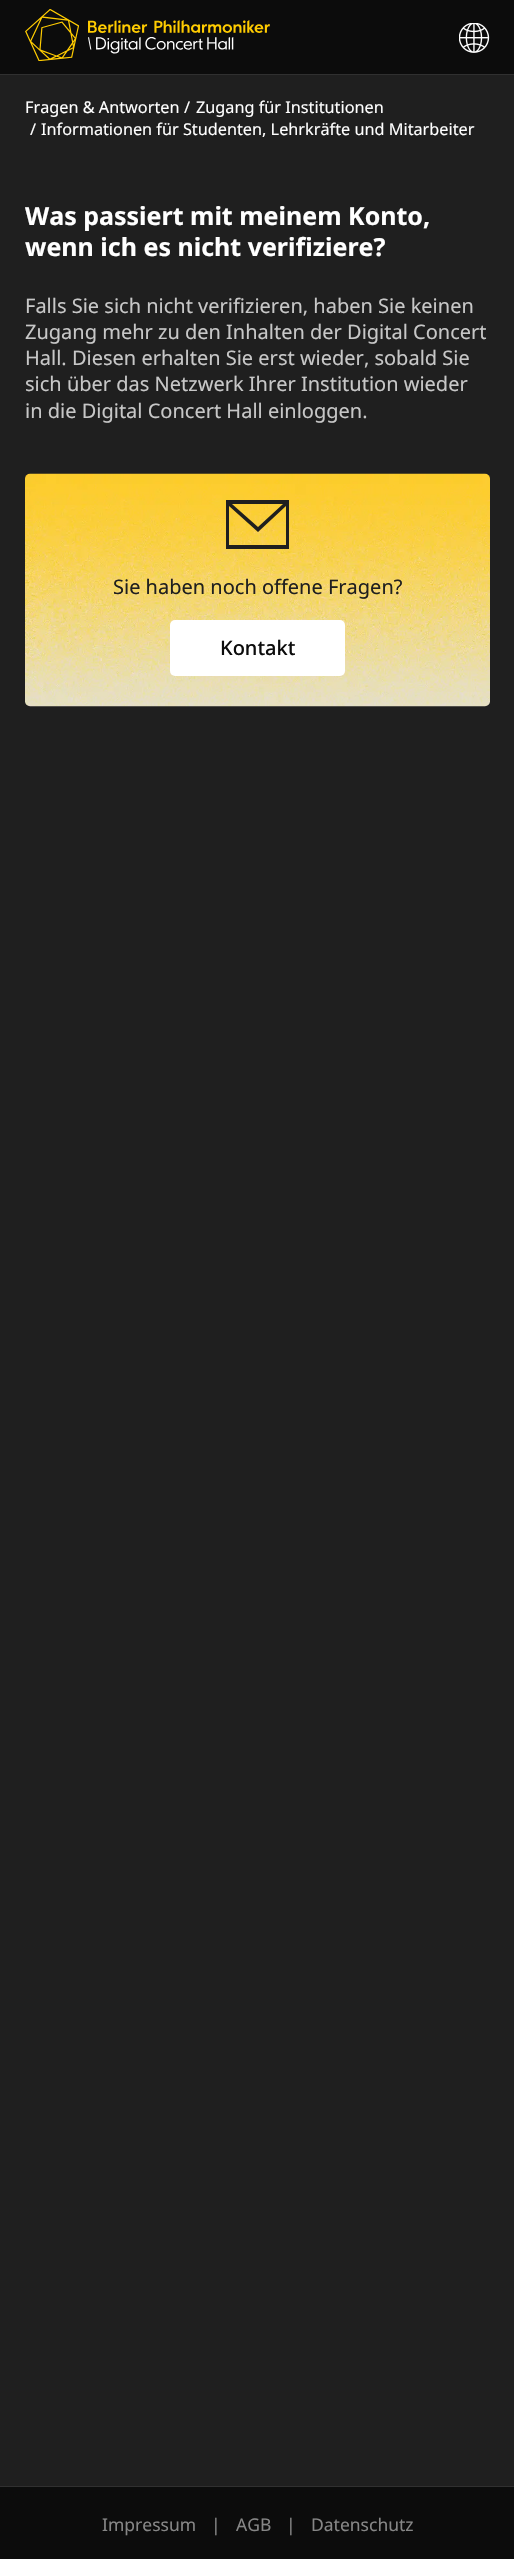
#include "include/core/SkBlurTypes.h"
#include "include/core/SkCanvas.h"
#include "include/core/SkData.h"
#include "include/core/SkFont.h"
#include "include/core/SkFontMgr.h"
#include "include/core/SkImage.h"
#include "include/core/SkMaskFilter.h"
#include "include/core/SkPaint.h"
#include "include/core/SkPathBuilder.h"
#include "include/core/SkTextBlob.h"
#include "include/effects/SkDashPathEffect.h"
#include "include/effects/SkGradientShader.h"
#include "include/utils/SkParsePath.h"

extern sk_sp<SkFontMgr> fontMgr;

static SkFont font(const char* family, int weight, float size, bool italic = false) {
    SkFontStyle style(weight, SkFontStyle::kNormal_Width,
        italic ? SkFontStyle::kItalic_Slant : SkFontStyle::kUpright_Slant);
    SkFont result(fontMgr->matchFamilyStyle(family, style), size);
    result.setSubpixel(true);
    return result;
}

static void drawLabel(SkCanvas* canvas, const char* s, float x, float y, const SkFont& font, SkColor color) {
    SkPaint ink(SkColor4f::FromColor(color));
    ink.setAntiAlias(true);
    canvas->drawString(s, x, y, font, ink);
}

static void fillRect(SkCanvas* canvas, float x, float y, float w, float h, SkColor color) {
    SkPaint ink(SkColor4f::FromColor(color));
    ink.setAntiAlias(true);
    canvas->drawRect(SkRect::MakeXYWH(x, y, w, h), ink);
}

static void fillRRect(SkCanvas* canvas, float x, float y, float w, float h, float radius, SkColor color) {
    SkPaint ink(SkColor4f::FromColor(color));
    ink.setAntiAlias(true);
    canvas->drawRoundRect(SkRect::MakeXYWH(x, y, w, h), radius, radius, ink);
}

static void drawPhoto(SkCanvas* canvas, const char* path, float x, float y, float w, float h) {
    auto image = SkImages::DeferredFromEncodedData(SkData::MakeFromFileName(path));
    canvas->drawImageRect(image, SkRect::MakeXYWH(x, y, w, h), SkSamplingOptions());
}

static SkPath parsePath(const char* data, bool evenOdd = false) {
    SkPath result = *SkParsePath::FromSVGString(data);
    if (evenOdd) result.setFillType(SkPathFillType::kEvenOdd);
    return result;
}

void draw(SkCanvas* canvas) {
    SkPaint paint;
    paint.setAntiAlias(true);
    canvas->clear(0xFF1F1F1F);
    fillRect(canvas, 0, 0, 514, 74, 0xFF0C0C0C);
    fillRect(canvas, 0, 74, 514, 1, 0xFF303030);
    drawPhoto(canvas, "assets/img1.png", 25, 9, 245, 52);
    drawPhoto(canvas, "assets/img2.png", 459, 23, 31, 30);
    SkFont font1 = font("Noto Sans", 400, 16.25f);
    drawLabel(canvas, "Fragen & Antworten", 25, 113, font1, 0xFFFFFFFF);
    drawLabel(canvas, "/", 184, 113, font1, 0xFFFFFFFF);
    drawLabel(canvas, "Zugang für Institutionen", 196, 113, font1, 0xFFFFFFFF);
    drawLabel(canvas, "/", 30, 135, font1, 0xFFFFFFFF);
    drawLabel(canvas, "Informationen für Studenten, Lehrkräfte und Mitarbeiter", 41, 135, font1, 0xFFFFFFFF);
    SkFont font2 = font("Noto Sans", 700, 25);
    drawLabel(canvas, "Was passiert mit meinem Konto,", 25, 225, font2, 0xFFFFFFFF);
    drawLabel(canvas, "wenn ich es nicht verifiziere?", 25, 256, font2, 0xFFFFFFFF);
    SkFont font3 = font("Noto Sans", 400, 20);
    drawLabel(canvas, "Falls Sie sich nicht verifizieren, haben Sie keinen", 25, 313, font3, 0xFFC7C7C7);
    drawLabel(canvas, "Zugang mehr zu den Inhalten der Digital Concert", 25, 339, font3, 0xFFC7C7C7);
    drawLabel(canvas, "Hall. Diesen erhalten Sie erst wieder, sobald Sie", 25, 365, font3, 0xFFC7C7C7);
    drawLabel(canvas, "sich über das Netzwerk Ihrer Institution wieder", 25, 391, font3, 0xFFC7C7C7);
    drawLabel(canvas, "in die Digital Concert Hall einloggen.", 25, 418, font3, 0xFFC7C7C7);
    drawPhoto(canvas, "assets/img3.png", 25, 473, 465, 234);
    paint.setColor(0xFF1F1F1F);
    canvas->drawPath(parsePath("M289 500V549H226V500ZM286 506L258 532L229 506V545H286ZM283 504H232L258 527Z"), paint);
    drawLabel(canvas, "Sie haben noch offene Fragen?", 113, 594, font3, 0xFF1F1F1F);
    fillRRect(canvas, 170, 620, 175, 56, 5, 0xFFFFFFFF);
    SkFont font4 = font("Noto Sans", 500, 20);
    drawLabel(canvas, "Kontakt", 220, 655, font4, 0xFF0C0C0C);
    fillRect(canvas, 0, 2487, 514, 72, 0xFF0C0C0C);
    fillRect(canvas, 0, 2486, 514, 1, 0xFF303030);
    SkFont font5 = font("Noto Sans", 400, 17.5f);
    drawLabel(canvas, "Impressum", 102, 2531, font5, 0xFF868686);
    drawLabel(canvas, "|", 211, 2531, font5, 0xFF868686);
    drawLabel(canvas, "AGB", 236, 2531, font5, 0xFF868686);
    drawLabel(canvas, "|", 286, 2531, font5, 0xFF868686);
    drawLabel(canvas, "Datenschutz", 311, 2531, font5, 0xFF868686);
}
